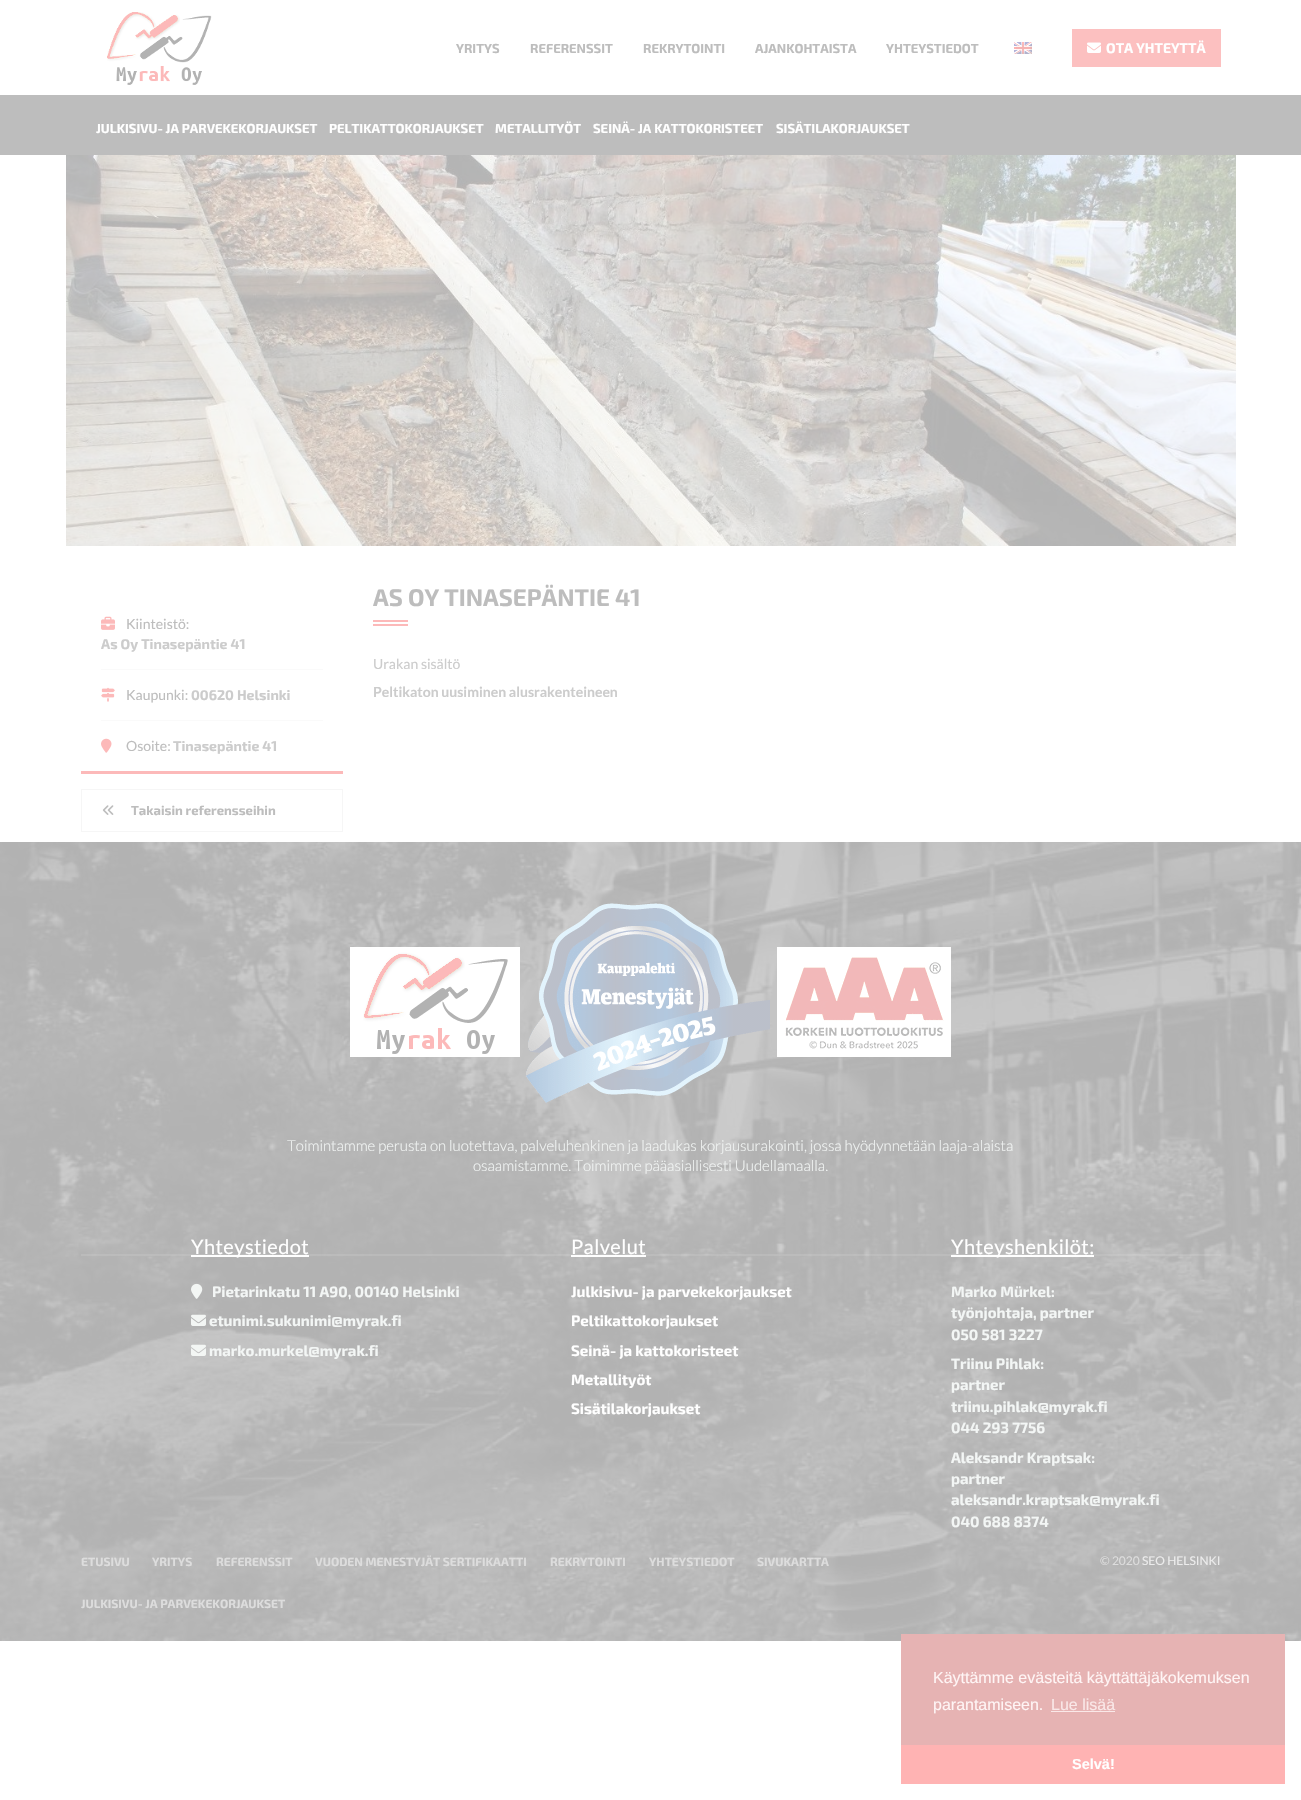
#include "include/core/SkBlurTypes.h"
#include "include/core/SkCanvas.h"
#include "include/core/SkData.h"
#include "include/core/SkFont.h"
#include "include/core/SkFontMgr.h"
#include "include/core/SkImage.h"
#include "include/core/SkMaskFilter.h"
#include "include/core/SkPaint.h"
#include "include/core/SkPathBuilder.h"
#include "include/core/SkTextBlob.h"
#include "include/effects/SkDashPathEffect.h"
#include "include/effects/SkGradientShader.h"
#include "include/utils/SkParsePath.h"

extern sk_sp<SkFontMgr> fontMgr;

static SkFont font(const char* family, int weight, float size, bool italic = false) {
    SkFontStyle style(weight, SkFontStyle::kNormal_Width,
        italic ? SkFontStyle::kItalic_Slant : SkFontStyle::kUpright_Slant);
    SkFont result(fontMgr->matchFamilyStyle(family, style), size);
    result.setSubpixel(true);
    return result;
}

static void drawLabel(SkCanvas* canvas, const char* s, float x, float y, const SkFont& font, SkColor color) {
    SkPaint ink(SkColor4f::FromColor(color));
    ink.setAntiAlias(true);
    canvas->drawString(s, x, y, font, ink);
}

static void drawTracked(SkCanvas* canvas, const char* s, float x, float y, const SkFont& font, const SkPaint& ink, float letter, float word) {
    std::vector<SkGlyphID> glyphs(font.countText(s, strlen(s), SkTextEncoding::kUTF8));
    std::vector<float> xs(glyphs.size());
    font.textToGlyphs(s, strlen(s), SkTextEncoding::kUTF8, glyphs);
    font.getXPos(glyphs, xs, x);
    float extra = 0;
    for (size_t i = 0; i < glyphs.size(); i++) {
        xs[i] += extra;
        extra += letter + word * (glyphs[i] == font.unicharToGlyph(' '));
    }
    canvas->drawTextBlob(SkTextBlob::MakeFromPosHGlyphs(glyphs, xs, y, font), 0, 0, ink);
}

static void fillRect(SkCanvas* canvas, float x, float y, float w, float h, SkColor color) {
    SkPaint ink(SkColor4f::FromColor(color));
    ink.setAntiAlias(true);
    canvas->drawRect(SkRect::MakeXYWH(x, y, w, h), ink);
}

static void drawPhoto(SkCanvas* canvas, const char* path, float x, float y, float w, float h) {
    auto image = SkImages::DeferredFromEncodedData(SkData::MakeFromFileName(path));
    canvas->drawImageRect(image, SkRect::MakeXYWH(x, y, w, h), SkSamplingOptions());
}

void draw(SkCanvas* canvas) {
    SkPaint paint;
    paint.setAntiAlias(true);
    canvas->clear(0xFFFFFFFF);
    drawPhoto(canvas, "assets/img1.png", 107, 12, 105, 73);
    SkFont font1 = font("Exo 2", 700, 13);
    drawLabel(canvas, "YRITYS", 456, 53, font1, 0xFFBDBDBD);
    drawLabel(canvas, "REFERENSSIT", 530, 53, font1, 0xFFBDBDBD);
    drawLabel(canvas, "REKRYTOINTI", 643, 53, font1, 0xFFBDBDBD);
    drawLabel(canvas, "AJANKOHTAISTA", 755, 53, font1, 0xFFBDBDBD);
    drawLabel(canvas, "YHTEYSTIEDOT", 886, 53, font1, 0xFFBDBDBD);
    drawPhoto(canvas, "assets/img2.png", 1014, 42, 18, 12);
    fillRect(canvas, 1072, 29, 149, 38, 0xFFFCC0C0);
    drawPhoto(canvas, "assets/img3.png", 1087, 42, 14, 11);
    SkFont font2 = font("Exo 2", 700, 14);
    drawLabel(canvas, "OTA YHTEYTTÄ", 1106, 53, font2, 0xFFFFFFFF);
    fillRect(canvas, 0, 95, 1301, 60, 0xFFBDBDBD);
    drawLabel(canvas, "JULKISIVU- JA PARVEKEKORJAUKSET", 96, 133, font1, 0xFFFFFFFF);
    drawLabel(canvas, "PELTIKATTOKORJAUKSET", 329, 133, font1, 0xFFFFFFFF);
    drawLabel(canvas, "METALLITYÖT", 495, 133, font1, 0xFFFFFFFF);
    drawLabel(canvas, "SEINÄ- JA KATTOKORISTEET", 593, 133, font1, 0xFFFFFFFF);
    drawLabel(canvas, "SISÄTILAKORJAUKSET", 776, 133, font1, 0xFFFFFFFF);
    drawPhoto(canvas, "assets/img4.png", 66, 155, 1170, 391);
    fillRect(canvas, 81, 771, 262, 3, 0xFFFCB9B9);
    fillRect(canvas, 101, 669, 222, 1, 0xFFFAFAFA);
    drawPhoto(canvas, "assets/img5.png", 101, 616, 14, 14);
    SkFont font3 = font("Lato", 400, 14);
    drawLabel(canvas, "Kiinteistö:", 126, 629, font3, 0xFFBDBDBD);
    drawLabel(canvas, "As Oy Tinasepäntie 41", 101, 649, font2, 0xFFCCCCCC);
    fillRect(canvas, 101, 720, 222, 1, 0xFFFAFAFA);
    drawPhoto(canvas, "assets/img6.png", 101, 687, 14, 15);
    drawLabel(canvas, "Kaupunki:", 126, 700, font3, 0xFFBDBDBD);
    drawLabel(canvas, "00620 Helsinki", 191, 700, font2, 0xFFCCCCCC);
    drawPhoto(canvas, "assets/img7.png", 101, 738, 11, 15);
    drawLabel(canvas, "Osoite:", 126, 751, font3, 0xFFBDBDBD);
    drawLabel(canvas, "Tinasepäntie 41", 173, 751, font2, 0xFFCCCCCC);
    paint.setStroke(true);
    paint.setStrokeWidth(1);
    paint.setColor(0xFFF6F6F6);
    canvas->drawRect(SkRect::MakeXYWH(81.5f, 789.5f, 261, 42), paint);
    drawPhoto(canvas, "assets/img8.png", 102, 805, 12, 10);
    drawLabel(canvas, "Takaisin referensseihin", 131, 815, font1, 0xFFBDBDBD);
    SkFont font4 = font("Exo 2", 700, 24);
    drawLabel(canvas, "AS OY TINASEPÄNTIE 41", 373, 606, font4, 0xFFBDBDBD);
    fillRect(canvas, 373, 620, 35, 2, 0xFFFCB9B9);
    fillRect(canvas, 373, 624, 35, 2, 0xFFFCB9B9);
    drawLabel(canvas, "Urakan sisältö", 373, 669, font3, 0xFFCCCCCC);
    SkFont font5 = font("Lato", 700, 14);
    drawLabel(canvas, "Peltikaton uusiminen alusrakenteineen", 373, 697, font5, 0xFFCCCCCC);
    drawPhoto(canvas, "assets/img9.png", 0, 842, 1301, 799);
    fillRect(canvas, 350, 947, 170, 110, 0xFFFFFFFF);
    drawPhoto(canvas, "assets/img10.png", 525, 903, 245, 200);
    drawPhoto(canvas, "assets/img11.png", 777, 947, 174, 110);
    drawPhoto(canvas, "assets/img12.png", 363, 952, 145, 102);
    SkFont font6 = font("Lato", 300, 15);
    drawLabel(canvas, "Toimintamme perusta on luotettava, palveluhenkinen ja laadukas korjausurakointi, jossa hyödynnetään laaja-alaista", 287, 1151, font6, 0xFFF3F6F5);
    drawLabel(canvas, "osaamistamme. Toimimme pääasiallisesti Uudellamaalla.", 473, 1171, font6, 0xFFF3F6F5);
    fillRect(canvas, 81, 1254, 1140, 2, 0x1AFFFFFF);
    fillRect(canvas, 191, 1255, 118, 2, 0xFFFFFFFF);
    SkFont font7 = font("Lato", 400, 20);
    paint.setStroke(false);
    paint.setColor(0xFFFFFFFF);
    drawTracked(canvas, "Yhteystiedot", 191, 1254, font7, paint, 0.4f, 0);
    drawPhoto(canvas, "assets/img13.png", 191, 1283, 12, 16);
    SkFont font8 = font("Exo 2", 700, 15);
    drawLabel(canvas, "Pietarinkatu 11 A90, 00140 Helsinki", 212, 1297, font8, 0xFFF3F6F5);
    drawPhoto(canvas, "assets/img14.png", 191, 1314, 15, 12);
    drawLabel(canvas, "etunimi.sukunimi@myrak.fi", 209, 1326, font8, 0xFFF3F6F5);
    drawPhoto(canvas, "assets/img15.png", 191, 1344, 15, 12);
    drawLabel(canvas, "marko.murkel@myrak.fi", 209, 1356, font8, 0xFFF3F6F5);
    drawTracked(canvas, "Palvelut", 571, 1254, font7, paint, 0.4f, 0);
    fillRect(canvas, 571, 1255, 75, 2, 0xFFFFFFFF);
    drawLabel(canvas, "Julkisivu- ja parvekekorjaukset", 571, 1297, font8, 0xFFFFFFFF);
    drawLabel(canvas, "Peltikattokorjaukset", 571, 1326, font8, 0xFFFFFFFF);
    drawLabel(canvas, "Seinä- ja kattokoristeet", 571, 1356, font8, 0xFFFFFFFF);
    drawLabel(canvas, "Metallityöt", 571, 1385, font8, 0xFFFFFFFF);
    drawLabel(canvas, "Sisätilakorjaukset", 571, 1414, font8, 0xFFFFFFFF);
    fillRect(canvas, 951, 1255, 143, 2, 0xFFFFFFFF);
    drawTracked(canvas, "Yhteyshenkilöt:", 951, 1254, font7, paint, 0.4f, 0);
    drawLabel(canvas, "Marko Mürkel:", 951, 1297, font8, 0xFFF3F6F5);
    drawLabel(canvas, "työnjohtaja, partner", 951, 1318, font8, 0xFFF3F6F5);
    drawLabel(canvas, "050 581 3227", 951, 1340, font8, 0xFFF3F6F5);
    drawLabel(canvas, "Triinu Pihlak:", 951, 1369, font8, 0xFFF3F6F5);
    drawLabel(canvas, "partner", 951, 1390, font8, 0xFFF3F6F5);
    drawLabel(canvas, "triinu.pihlak@myrak.fi", 951, 1412, font8, 0xFFF3F6F5);
    drawLabel(canvas, "044 293 7756", 951, 1433, font8, 0xFFF3F6F5);
    drawLabel(canvas, "Aleksandr Kraptsak:", 951, 1463, font8, 0xFFF3F6F5);
    drawLabel(canvas, "partner", 951, 1484, font8, 0xFFF3F6F5);
    drawLabel(canvas, "aleksandr.kraptsak@myrak.fi", 951, 1505, font8, 0xFFF3F6F5);
    drawLabel(canvas, "040 688 8374", 951, 1527, font8, 0xFFF3F6F5);
    SkFont font9 = font("Exo 2", 700, 12);
    drawLabel(canvas, "ETUSIVU", 81, 1566, font9, 0xFFDDDDDD);
    drawLabel(canvas, "YRITYS", 152, 1566, font9, 0xFFDDDDDD);
    drawLabel(canvas, "REFERENSSIT", 216, 1566, font9, 0xFFDDDDDD);
    drawLabel(canvas, "VUODEN MENESTYJÄT SERTIFIKAATTI", 315, 1566, font9, 0xFFDDDDDD);
    drawLabel(canvas, "REKRYTOINTI", 550, 1566, font9, 0xFFDDDDDD);
    drawLabel(canvas, "YHTEYSTIEDOT", 649, 1566, font9, 0xFFDDDDDD);
    drawLabel(canvas, "SIVUKARTTA", 757, 1566, font9, 0xFFDDDDDD);
    drawLabel(canvas, "JULKISIVU- JA PARVEKEKORJAUKSET", 81, 1608, font9, 0xFFDDDDDD);
    SkFont font10 = font("Lato", 400, 12);
    drawLabel(canvas, "© 2020", 1100, 1565, font10, 0xFFDDDDDD);
    drawLabel(canvas, "SEO HELSINKI", 1142, 1565, font10, 0xFFECECEC);
    fillRect(canvas, 901, 1634, 384, 111, 0xFFE6B3B3);
    SkFont font11 = font("Liberation Sans", 400, 16);
    drawLabel(canvas, "Käyttämme evästeitä käyttättäjäkokemuksen", 933, 1683, font11, 0xFFFFF5F5);
    drawLabel(canvas, "parantamiseen.", 933, 1710, font11, 0xFFFFF5F5);
    drawLabel(canvas, "Lue lisää", 1051, 1710, font11, 0xFFFAE8E8);
    fillRect(canvas, 1051, 1711, 64, 1, 0xFFFAE8E8);
    fillRect(canvas, 901, 1745, 384, 39, 0xFFFFB3B3);
    SkFont font12 = font("Liberation Sans", 700, 14.5f);
    drawLabel(canvas, "Selvä!", 1072, 1769, font12, 0xFFFFFFFF);
}
